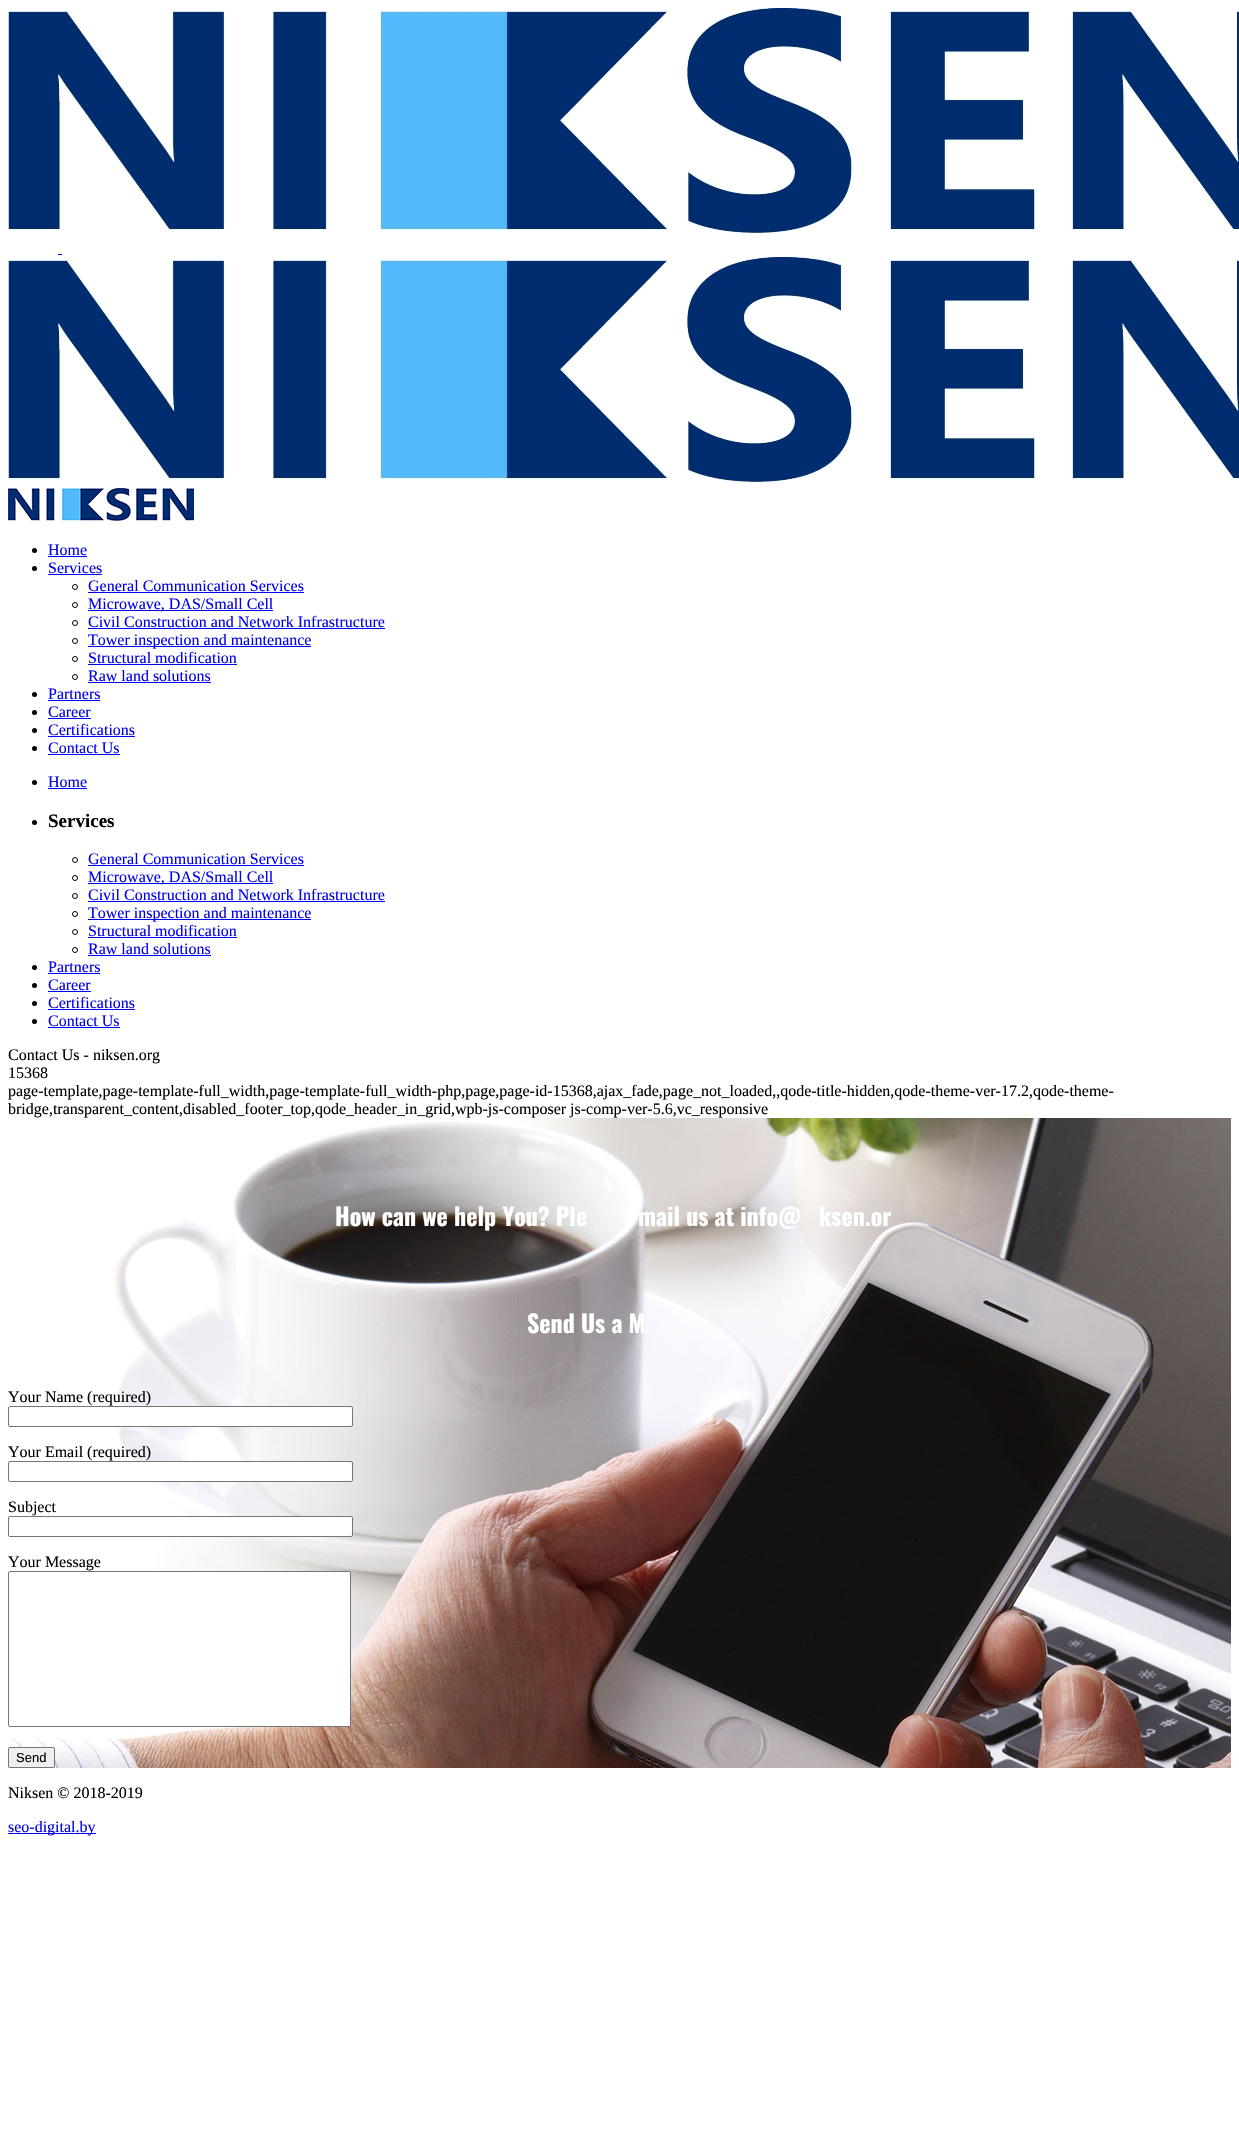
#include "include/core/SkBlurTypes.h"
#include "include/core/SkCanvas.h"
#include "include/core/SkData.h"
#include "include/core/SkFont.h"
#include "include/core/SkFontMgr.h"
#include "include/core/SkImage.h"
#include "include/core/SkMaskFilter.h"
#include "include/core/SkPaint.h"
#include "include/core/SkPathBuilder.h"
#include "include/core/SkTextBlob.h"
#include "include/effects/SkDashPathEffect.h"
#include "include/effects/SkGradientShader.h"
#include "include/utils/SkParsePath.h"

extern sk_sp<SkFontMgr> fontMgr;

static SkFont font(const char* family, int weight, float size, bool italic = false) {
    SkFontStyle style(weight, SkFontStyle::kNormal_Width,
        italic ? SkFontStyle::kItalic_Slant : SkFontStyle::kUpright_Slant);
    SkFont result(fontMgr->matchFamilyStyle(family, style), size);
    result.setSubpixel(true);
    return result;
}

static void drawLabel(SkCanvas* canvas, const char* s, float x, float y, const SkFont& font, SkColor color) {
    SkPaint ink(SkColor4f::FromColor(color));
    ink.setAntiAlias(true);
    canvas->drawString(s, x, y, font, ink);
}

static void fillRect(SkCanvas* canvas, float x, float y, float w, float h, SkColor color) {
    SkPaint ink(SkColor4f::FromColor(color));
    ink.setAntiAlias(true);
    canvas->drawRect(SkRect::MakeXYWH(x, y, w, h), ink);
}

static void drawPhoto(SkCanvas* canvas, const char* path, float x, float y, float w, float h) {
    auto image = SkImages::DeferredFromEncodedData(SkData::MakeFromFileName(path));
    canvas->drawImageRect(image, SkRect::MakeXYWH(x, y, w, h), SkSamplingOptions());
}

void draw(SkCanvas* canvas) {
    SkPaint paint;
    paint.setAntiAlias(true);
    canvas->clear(0xFFFFFFFF);
    drawPhoto(canvas, "assets/img1.png", 8, 8, 1231, 227);
    fillRect(canvas, 58, 254, 4, 1, 0xFF0000EE);
    drawPhoto(canvas, "assets/img1.png", 8, 257, 1231, 227);
    drawPhoto(canvas, "assets/img2.png", 8, 488, 186, 33);
    paint.setColor(0xFF000000);
    canvas->drawCircle(34.5f, 550.5f, 2.5f, paint);
    SkFont font1 = font("Liberation Serif", 400, 16);
    drawLabel(canvas, "Home", 48, 555, font1, 0xFF0000EE);
    fillRect(canvas, 48, 556, 39, 1, 0xFF0000EE);
    canvas->drawCircle(34.5f, 568.5f, 2.5f, paint);
    drawLabel(canvas, "Services", 48, 573, font1, 0xFF0000EE);
    fillRect(canvas, 48, 574, 54, 1, 0xFF0000EE);
    paint.setStroke(true);
    paint.setStrokeWidth(1);
    canvas->drawCircle(75, 587, 2.5f, paint);
    drawLabel(canvas, "General Communication Services", 88, 591, font1, 0xFF0000EE);
    fillRect(canvas, 88, 592, 216, 1, 0xFF0000EE);
    canvas->drawCircle(75, 605, 2.5f, paint);
    fillRect(canvas, 88, 610, 185, 1, 0xFF0000EE);
    drawLabel(canvas, "Microwave, DAS/Small Cell", 88, 609, font1, 0xFF0000EE);
    canvas->drawCircle(75, 623, 2.5f, paint);
    drawLabel(canvas, "Civil Construction and Network Infrastructure", 88, 627, font1, 0xFF0000EE);
    fillRect(canvas, 88, 628, 297, 1, 0xFF0000EE);
    canvas->drawCircle(75, 641, 2.5f, paint);
    fillRect(canvas, 88, 646, 223, 1, 0xFF0000EE);
    drawLabel(canvas, "Tower inspection and maintenance", 88, 645, font1, 0xFF0000EE);
    canvas->drawCircle(75, 659, 2.5f, paint);
    drawLabel(canvas, "Structural modification", 88, 663, font1, 0xFF0000EE);
    fillRect(canvas, 88, 664, 149, 1, 0xFF0000EE);
    canvas->drawCircle(75, 677, 2.5f, paint);
    drawLabel(canvas, "Raw land solutions", 88, 681, font1, 0xFF0000EE);
    fillRect(canvas, 88, 682, 123, 1, 0xFF0000EE);
    paint.setStroke(false);
    canvas->drawCircle(34.5f, 694.5f, 2.5f, paint);
    drawLabel(canvas, "Partners", 48, 699, font1, 0xFF0000EE);
    fillRect(canvas, 48, 700, 52, 1, 0xFF0000EE);
    canvas->drawCircle(34.5f, 712.5f, 2.5f, paint);
    drawLabel(canvas, "Career", 48, 717, font1, 0xFF0000EE);
    fillRect(canvas, 48, 718, 43, 1, 0xFF0000EE);
    canvas->drawCircle(34.5f, 730.5f, 2.5f, paint);
    drawLabel(canvas, "Certifications", 48, 735, font1, 0xFF0000EE);
    fillRect(canvas, 48, 736, 87, 1, 0xFF0000EE);
    canvas->drawCircle(34.5f, 748.5f, 2.5f, paint);
    drawLabel(canvas, "Contact Us", 48, 753, font1, 0xFF0000EE);
    fillRect(canvas, 48, 754, 72, 1, 0xFF0000EE);
    canvas->drawCircle(34.5f, 782.5f, 2.5f, paint);
    drawLabel(canvas, "Home", 48, 787, font1, 0xFF0000EE);
    fillRect(canvas, 48, 788, 39, 1, 0xFF0000EE);
    canvas->drawCircle(34.5f, 822.5f, 2.5f, paint);
    SkFont font2 = font("Liberation Serif", 700, 19);
    drawLabel(canvas, "Services", 48, 827, font2, 0xFF000000);
    paint.setStroke(true);
    canvas->drawCircle(75, 860, 2.5f, paint);
    drawLabel(canvas, "General Communication Services", 88, 864, font1, 0xFF0000EE);
    fillRect(canvas, 88, 865, 216, 1, 0xFF0000EE);
    canvas->drawCircle(75, 878, 2.5f, paint);
    fillRect(canvas, 88, 883, 185, 1, 0xFF0000EE);
    drawLabel(canvas, "Microwave, DAS/Small Cell", 88, 882, font1, 0xFF0000EE);
    canvas->drawCircle(75, 896, 2.5f, paint);
    drawLabel(canvas, "Civil Construction and Network Infrastructure", 88, 900, font1, 0xFF0000EE);
    fillRect(canvas, 88, 901, 297, 1, 0xFF0000EE);
    canvas->drawCircle(75, 914, 2.5f, paint);
    fillRect(canvas, 88, 919, 223, 1, 0xFF0000EE);
    drawLabel(canvas, "Tower inspection and maintenance", 88, 918, font1, 0xFF0000EE);
    canvas->drawCircle(75, 932, 2.5f, paint);
    drawLabel(canvas, "Structural modification", 88, 936, font1, 0xFF0000EE);
    fillRect(canvas, 88, 937, 149, 1, 0xFF0000EE);
    canvas->drawCircle(75, 950, 2.5f, paint);
    drawLabel(canvas, "Raw land solutions", 88, 954, font1, 0xFF0000EE);
    fillRect(canvas, 88, 955, 123, 1, 0xFF0000EE);
    paint.setStroke(false);
    canvas->drawCircle(34.5f, 967.5f, 2.5f, paint);
    drawLabel(canvas, "Partners", 48, 972, font1, 0xFF0000EE);
    fillRect(canvas, 48, 973, 52, 1, 0xFF0000EE);
    canvas->drawCircle(34.5f, 985.5f, 2.5f, paint);
    drawLabel(canvas, "Career", 48, 990, font1, 0xFF0000EE);
    fillRect(canvas, 48, 991, 43, 1, 0xFF0000EE);
    canvas->drawCircle(34.5f, 1003.5f, 2.5f, paint);
    drawLabel(canvas, "Certifications", 48, 1008, font1, 0xFF0000EE);
    fillRect(canvas, 48, 1009, 87, 1, 0xFF0000EE);
    canvas->drawCircle(34.5f, 1021.5f, 2.5f, paint);
    drawLabel(canvas, "Contact Us", 48, 1026, font1, 0xFF0000EE);
    fillRect(canvas, 48, 1027, 72, 1, 0xFF0000EE);
    drawLabel(canvas, "Contact Us - niksen.org", 8, 1060, font1, 0xFF000000);
    drawLabel(canvas, "15368", 8, 1078, font1, 0xFF000000);
    drawLabel(canvas, "page-template,page-template-full_width,page-template-full_width-php,page,page-id-15368,ajax_fade,page_not_loaded,,qode-title-hidden,qode-theme-ver-17.2,qode-theme-", 8, 1096, font1, 0xFF000000);
    drawLabel(canvas, "bridge,transparent_content,disabled_footer_top,qode_header_in_grid,wpb-js-composer js-comp-ver-5.6,vc_responsive", 8, 1114, font1, 0xFF000000);
    drawPhoto(canvas, "assets/img3.png", 8, 1118, 1223, 650);
    SkFont font3 = font("Oswald", 700, 24);
    drawLabel(canvas, "How can we help You? Ple", 335, 1226, font3, 0xFFFFFFFF);
    drawLabel(canvas, "mail us at info@", 638, 1226, font3, 0xFFFFFFFF);
    drawLabel(canvas, "ksen.or", 819, 1226, font3, 0xFFFFFFFF);
    drawLabel(canvas, "Send Us a M", 527, 1333, font3, 0xFFFFFFFF);
    drawLabel(canvas, "Your Name (required)", 8, 1402, font1, 0xFF000000);
    paint.setColor(0xFFFFFFFF);
    canvas->drawRoundRect(SkRect::MakeXYWH(8.5f, 1406.5f, 344, 20), 1.5f, 1.5f, paint);
    paint.setStroke(true);
    paint.setColor(0xFF767676);
    canvas->drawRoundRect(SkRect::MakeXYWH(8.5f, 1406.5f, 344, 20), 1.5f, 1.5f, paint);
    drawLabel(canvas, "Your Email (required)", 8, 1457, font1, 0xFF000000);
    paint.setStroke(false);
    paint.setColor(0xFFFFFFFF);
    canvas->drawRoundRect(SkRect::MakeXYWH(8.5f, 1461.5f, 344, 20), 1.5f, 1.5f, paint);
    paint.setStroke(true);
    paint.setColor(0xFF767676);
    canvas->drawRoundRect(SkRect::MakeXYWH(8.5f, 1461.5f, 344, 20), 1.5f, 1.5f, paint);
    drawLabel(canvas, "Subject", 8, 1512, font1, 0xFF000000);
    paint.setStroke(false);
    paint.setColor(0xFFFFFFFF);
    canvas->drawRoundRect(SkRect::MakeXYWH(8.5f, 1516.5f, 344, 20), 1.5f, 1.5f, paint);
    paint.setStroke(true);
    paint.setColor(0xFF767676);
    canvas->drawRoundRect(SkRect::MakeXYWH(8.5f, 1516.5f, 344, 20), 1.5f, 1.5f, paint);
    drawLabel(canvas, "Your Message", 8, 1567, font1, 0xFF000000);
    paint.setStroke(false);
    paint.setColor(0xFFFFFFFF);
    canvas->drawRoundRect(SkRect::MakeXYWH(8.5f, 1571.5f, 342, 155), 1.5f, 1.5f, paint);
    paint.setStroke(true);
    paint.setColor(0xFF767676);
    canvas->drawRoundRect(SkRect::MakeXYWH(8.5f, 1571.5f, 342, 155), 1.5f, 1.5f, paint);
    paint.setStroke(false);
    paint.setColor(0xFFEFEFEF);
    canvas->drawRoundRect(SkRect::MakeXYWH(8.5f, 1747.5f, 46, 20), 1.5f, 1.5f, paint);
    paint.setStroke(true);
    paint.setColor(0xFF767676);
    canvas->drawRoundRect(SkRect::MakeXYWH(8.5f, 1747.5f, 46, 20), 1.5f, 1.5f, paint);
    SkFont font4 = font("Liberation Sans", 400, 13);
    drawLabel(canvas, "Send", 16, 1762, font4, 0xFF000000);
    drawLabel(canvas, "Niksen © 2018-2019", 8, 1798, font1, 0xFF000000);
    fillRect(canvas, 8, 1833, 88, 1, 0xFF0000EE);
    drawLabel(canvas, "seo-digital.by", 8, 1832, font1, 0xFF0000EE);
}
